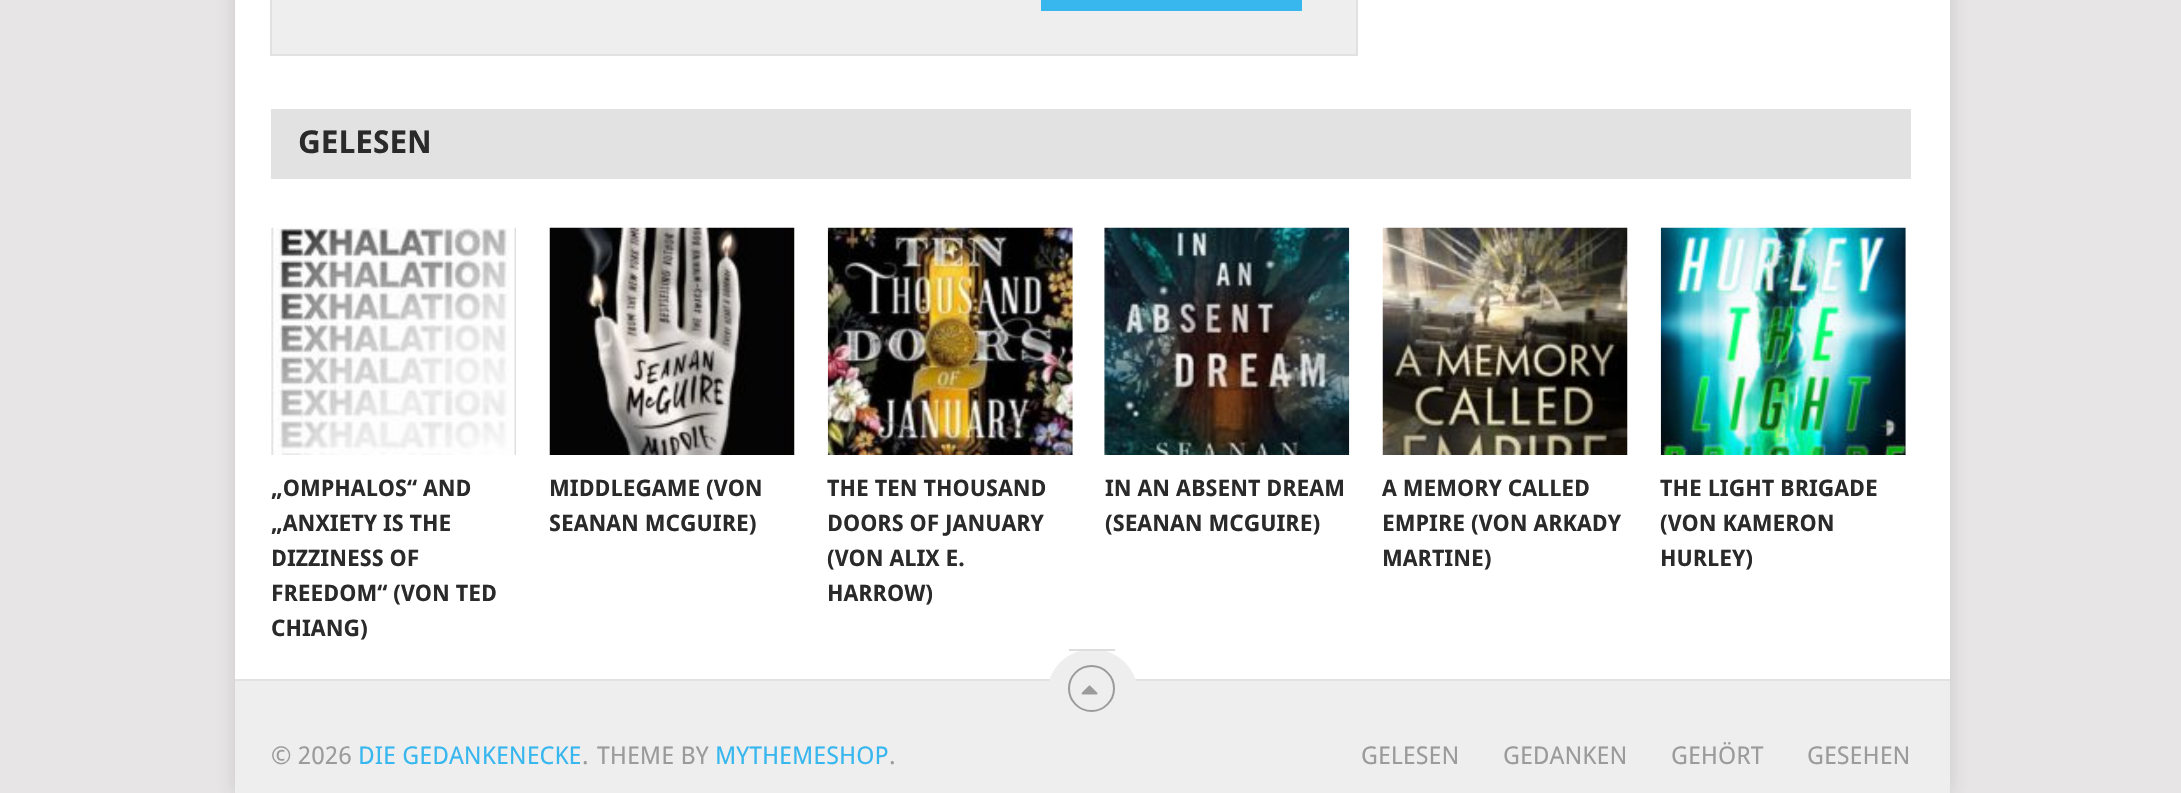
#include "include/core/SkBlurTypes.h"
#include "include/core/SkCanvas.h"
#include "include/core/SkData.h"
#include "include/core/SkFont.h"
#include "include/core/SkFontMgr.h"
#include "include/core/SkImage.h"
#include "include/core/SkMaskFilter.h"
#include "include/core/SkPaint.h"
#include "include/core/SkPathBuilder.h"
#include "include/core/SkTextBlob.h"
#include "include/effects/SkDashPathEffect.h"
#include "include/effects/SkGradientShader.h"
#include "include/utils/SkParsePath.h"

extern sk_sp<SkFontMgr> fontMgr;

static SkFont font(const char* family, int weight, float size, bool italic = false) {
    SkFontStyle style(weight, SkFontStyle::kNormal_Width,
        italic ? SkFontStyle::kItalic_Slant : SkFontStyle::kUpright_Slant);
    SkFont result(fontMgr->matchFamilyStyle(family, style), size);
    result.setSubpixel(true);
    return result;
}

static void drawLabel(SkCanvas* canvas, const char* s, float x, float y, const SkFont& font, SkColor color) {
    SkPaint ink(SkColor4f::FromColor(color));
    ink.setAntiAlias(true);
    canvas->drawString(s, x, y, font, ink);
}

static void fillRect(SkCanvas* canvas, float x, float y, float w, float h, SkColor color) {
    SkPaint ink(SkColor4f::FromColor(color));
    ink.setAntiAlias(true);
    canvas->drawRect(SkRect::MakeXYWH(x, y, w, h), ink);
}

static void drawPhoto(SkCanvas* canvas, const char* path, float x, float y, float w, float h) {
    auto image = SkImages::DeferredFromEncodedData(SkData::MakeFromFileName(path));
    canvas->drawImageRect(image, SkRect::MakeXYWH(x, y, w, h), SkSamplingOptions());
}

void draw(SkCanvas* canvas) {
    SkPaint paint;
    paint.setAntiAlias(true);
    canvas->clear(0xFFE7E5E6);
    paint.setColor(0x2B323232);
    paint.setMaskFilter(SkMaskFilter::MakeBlur(kNormal_SkBlurStyle, 9));
    canvas->drawRect(SkRect::MakeXYWH(235, -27, 1715, 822), paint);
    paint.setMaskFilter(nullptr);
    fillRect(canvas, 235, 0, 1715, 679, 0xFFFFFFFF);
    paint.setColor(0xFFEEEEEE);
    canvas->drawRect(SkRect::MakeXYWH(271, -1, 1086, 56), paint);
    paint.setStroke(true);
    paint.setStrokeWidth(2);
    paint.setColor(0xFFE1E1E1);
    canvas->drawRect(SkRect::MakeXYWH(271, -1, 1086, 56), paint);
    fillRect(canvas, 1041, 0, 261, 11, 0xFF38B7EE);
    fillRect(canvas, 271, 109, 1640, 70, 0xFFE2E2E2);
    SkFont font1 = font("Droid Sans", 700, 31.5f);
    drawLabel(canvas, "GELESEN", 298, 153, font1, 0xFF2A2A2A);
    drawPhoto(canvas, "assets/img1.png", 271, 227, 245, 228);
    SkFont font2 = font("Droid Sans", 700, 22.75f);
    drawLabel(canvas, "„OMPHALOS“ AND", 271, 496, font2, 0xFF2A2A2A);
    drawLabel(canvas, "„ANXIETY IS THE", 271, 531, font2, 0xFF2A2A2A);
    drawLabel(canvas, "DIZZINESS OF", 271, 566, font2, 0xFF2A2A2A);
    drawLabel(canvas, "FREEDOM“ (VON TED", 271, 601, font2, 0xFF2A2A2A);
    drawLabel(canvas, "CHIANG)", 271, 636, font2, 0xFF2A2A2A);
    drawPhoto(canvas, "assets/img2.png", 549, 227, 246, 228);
    drawLabel(canvas, "MIDDLEGAME (VON", 549, 496, font2, 0xFF2A2A2A);
    drawLabel(canvas, "SEANAN MCGUIRE)", 549, 531, font2, 0xFF2A2A2A);
    drawPhoto(canvas, "assets/img3.png", 827, 227, 246, 228);
    drawLabel(canvas, "THE TEN THOUSAND", 827, 496, font2, 0xFF2A2A2A);
    drawLabel(canvas, "DOORS OF JANUARY", 827, 531, font2, 0xFF2A2A2A);
    drawLabel(canvas, "(VON ALIX E.", 827, 566, font2, 0xFF2A2A2A);
    drawLabel(canvas, "HARROW)", 827, 601, font2, 0xFF2A2A2A);
    drawPhoto(canvas, "assets/img4.png", 1104, 227, 246, 228);
    drawLabel(canvas, "IN AN ABSENT DREAM", 1105, 496, font2, 0xFF2A2A2A);
    drawLabel(canvas, "(SEANAN MCGUIRE)", 1105, 531, font2, 0xFF2A2A2A);
    drawPhoto(canvas, "assets/img5.png", 1382, 227, 246, 228);
    drawLabel(canvas, "A MEMORY CALLED", 1382, 496, font2, 0xFF2A2A2A);
    drawLabel(canvas, "EMPIRE (VON ARKADY", 1382, 531, font2, 0xFF2A2A2A);
    drawLabel(canvas, "MARTINE)", 1382, 566, font2, 0xFF2A2A2A);
    drawPhoto(canvas, "assets/img6.png", 1660, 227, 246, 228);
    drawLabel(canvas, "THE LIGHT BRIGADE", 1660, 496, font2, 0xFF2A2A2A);
    drawLabel(canvas, "(VON KAMERON", 1660, 531, font2, 0xFF2A2A2A);
    drawLabel(canvas, "HURLEY)", 1660, 566, font2, 0xFF2A2A2A);
    fillRect(canvas, 235, 681, 1715, 112, 0xFFEEEEEE);
    fillRect(canvas, 235, 679, 1715, 2, 0xFFE2E2E2);
    paint.setStroke(false);
    paint.setColor(0xFFEEEEEE);
    canvas->drawCircle(1092.5f, 694.5f, 45.5f, paint);
    fillRect(canvas, 1069, 649, 46, 2, 0xFFDDDDDD);
    paint.setStroke(true);
    paint.setColor(0xFF9B9B9B);
    canvas->drawCircle(1091.5f, 688.5f, 22.5f, paint);
    drawPhoto(canvas, "assets/img7.png", 1081, 685, 17, 10);
    SkFont font3 = font("Droid Sans", 400, 24.5f);
    drawLabel(canvas, "© 2026", 271, 764, font3, 0xFF9B9B9B);
    drawLabel(canvas, "DIE GEDANKENECKE", 358, 764, font3, 0xFF38B7EE);
    drawLabel(canvas, ".", 582, 764, font3, 0xFF9B9B9B);
    drawLabel(canvas, "THEME BY", 597, 764, font3, 0xFF9B9B9B);
    drawLabel(canvas, "MYTHEMESHOP", 715, 764, font3, 0xFF38B7EE);
    drawLabel(canvas, ".", 889, 764, font3, 0xFF9B9B9B);
    drawLabel(canvas, "GELESEN", 1361, 764, font3, 0xFF9B9B9B);
    drawLabel(canvas, "GEDANKEN", 1503, 764, font3, 0xFF9B9B9B);
    drawLabel(canvas, "GEHÖRT", 1671, 764, font3, 0xFF9B9B9B);
    drawLabel(canvas, "GESEHEN", 1807, 764, font3, 0xFF9B9B9B);
}
